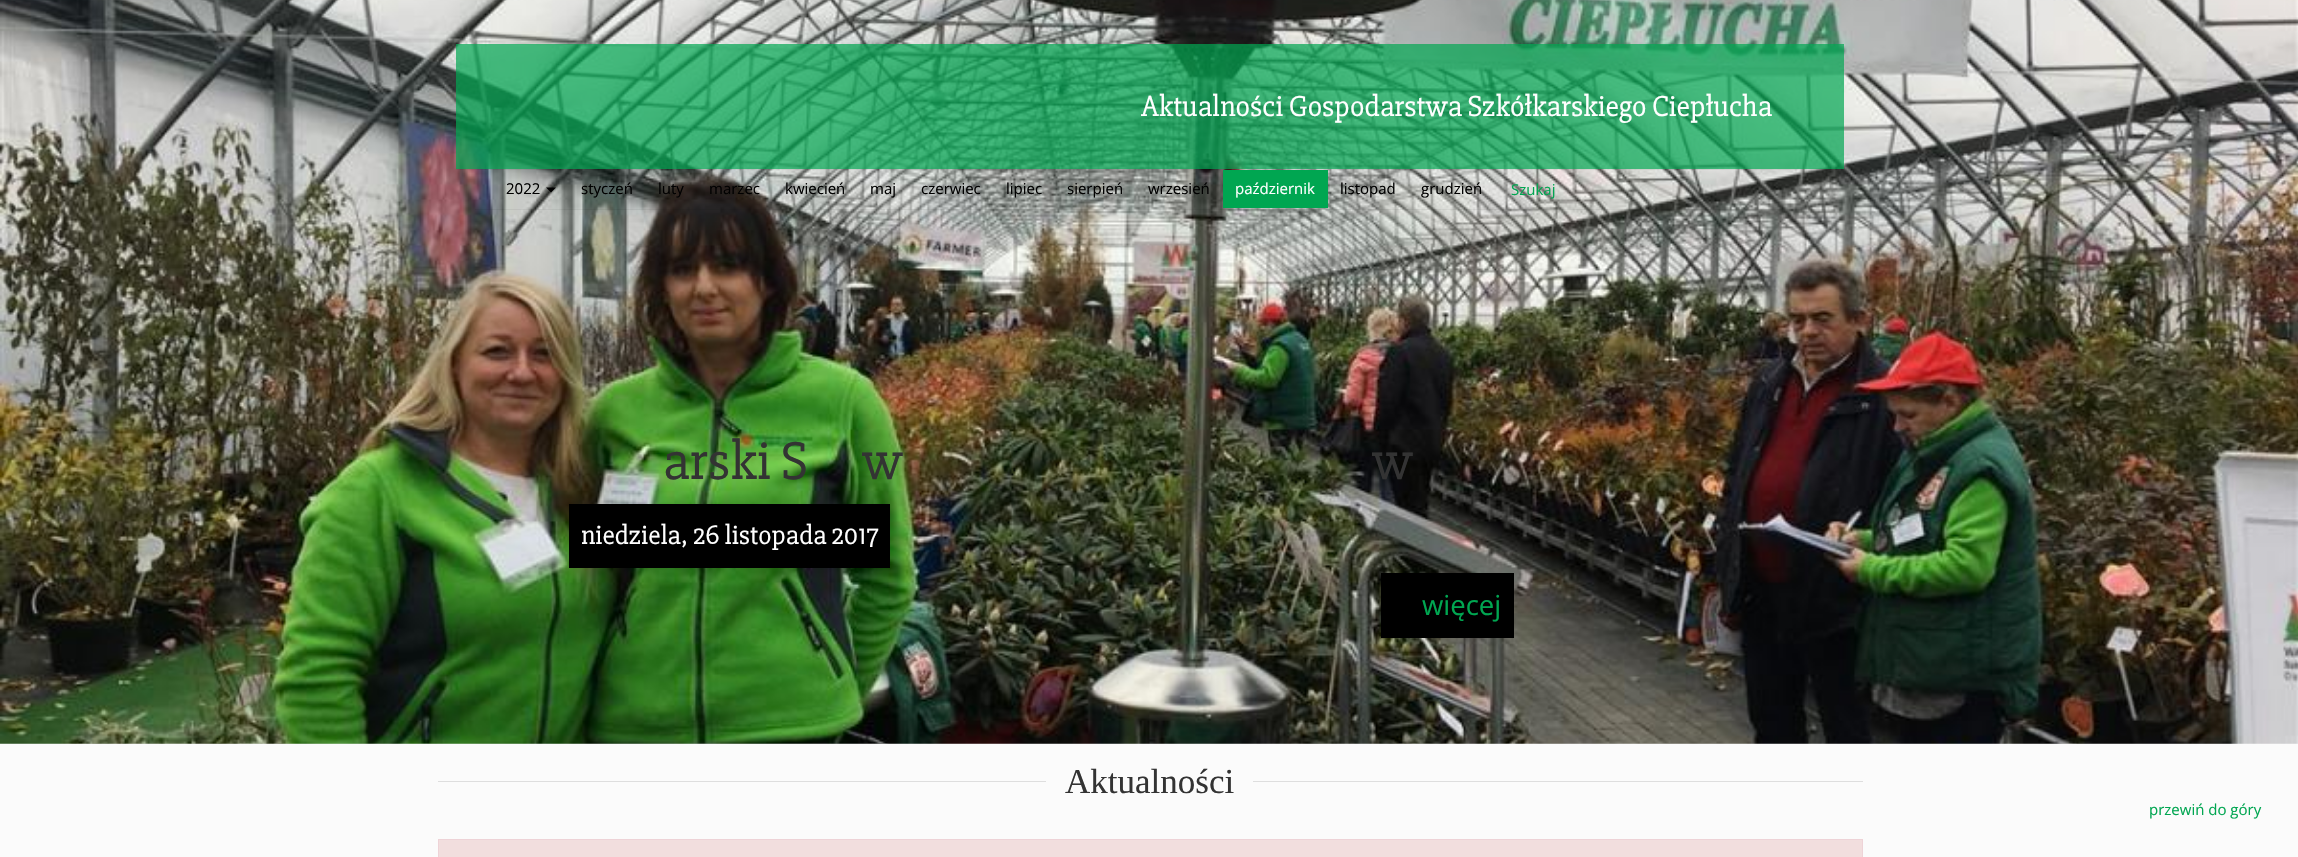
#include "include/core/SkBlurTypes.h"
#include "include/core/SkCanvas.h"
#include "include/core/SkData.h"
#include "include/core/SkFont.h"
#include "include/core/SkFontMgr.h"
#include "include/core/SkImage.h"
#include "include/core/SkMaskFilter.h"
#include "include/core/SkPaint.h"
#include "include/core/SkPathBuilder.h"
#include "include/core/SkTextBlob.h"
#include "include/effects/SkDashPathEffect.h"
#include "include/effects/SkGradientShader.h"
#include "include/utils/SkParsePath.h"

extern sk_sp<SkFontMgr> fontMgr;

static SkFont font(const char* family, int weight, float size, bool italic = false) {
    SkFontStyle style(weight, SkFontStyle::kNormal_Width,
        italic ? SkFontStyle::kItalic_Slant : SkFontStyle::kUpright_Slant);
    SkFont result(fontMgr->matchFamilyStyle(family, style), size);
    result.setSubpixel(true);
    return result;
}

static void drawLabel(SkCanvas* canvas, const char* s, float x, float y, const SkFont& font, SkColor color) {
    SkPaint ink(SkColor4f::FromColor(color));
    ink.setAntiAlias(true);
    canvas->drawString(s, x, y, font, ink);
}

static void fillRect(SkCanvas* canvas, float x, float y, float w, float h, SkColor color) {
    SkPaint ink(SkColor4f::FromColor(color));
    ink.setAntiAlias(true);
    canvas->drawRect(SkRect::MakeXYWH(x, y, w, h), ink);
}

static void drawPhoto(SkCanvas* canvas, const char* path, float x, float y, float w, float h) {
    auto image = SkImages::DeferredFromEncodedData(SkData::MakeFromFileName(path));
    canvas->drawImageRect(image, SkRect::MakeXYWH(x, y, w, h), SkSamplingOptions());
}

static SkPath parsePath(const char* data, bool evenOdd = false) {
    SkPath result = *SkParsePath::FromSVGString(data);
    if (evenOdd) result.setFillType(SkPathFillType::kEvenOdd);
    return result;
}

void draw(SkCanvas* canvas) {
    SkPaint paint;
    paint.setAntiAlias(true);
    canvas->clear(0xFFFBFBFB);
    drawPhoto(canvas, "assets/img1.png", 0, 0, 2298, 744);
    canvas->save();
    canvas->clipRect(SkRect::MakeXYWH(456, 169, 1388, 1));
    paint.setColor(0x0D000000);
    paint.setMaskFilter(SkMaskFilter::MakeBlur(kNormal_SkBlurStyle, 0.5f));
    canvas->drawRect(SkRect::MakeXYWH(456, 45, 1388, 125), paint);
    paint.setMaskFilter(nullptr);
    canvas->restore();
    fillRect(canvas, 456, 44, 1388, 125, 0xB300A651);
    SkFont font1 = font("Slabo 27px", 400, 30);
    drawLabel(canvas, "Aktualności Gospodarstwa Szkółkarskiego Ciepłucha", 1141, 116, font1, 0xFFFFFFFF);
    canvas->save();
    canvas->clipRect(SkRect::MakeXYWH(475, 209, 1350, 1));
    paint.setMaskFilter(SkMaskFilter::MakeBlur(kNormal_SkBlurStyle, 0.5f));
    canvas->drawRect(SkRect::MakeXYWH(475, 171, 1350, 39), paint);
    paint.setMaskFilter(nullptr);
    canvas->restore();
    SkFont font2 = font("Open Sans", 400, 15);
    drawLabel(canvas, "2022", 506, 194, font2, 0xFF000000);
    paint.setColor(0xFF000000);
    canvas->drawPath(parsePath("M546 187.5H556L551 192.5Z"), paint);
    drawLabel(canvas, "styczeń", 581, 194, font2, 0xFF000000);
    drawLabel(canvas, "luty", 658, 194, font2, 0xFF000000);
    drawLabel(canvas, "marzec", 709, 194, font2, 0xFF000000);
    drawLabel(canvas, "kwiecień", 785, 194, font2, 0xFF000000);
    drawLabel(canvas, "maj", 870, 194, font2, 0xFF000000);
    drawLabel(canvas, "czerwiec", 921, 194, font2, 0xFF000000);
    drawLabel(canvas, "lipiec", 1006, 194, font2, 0xFF000000);
    drawLabel(canvas, "sierpień", 1067, 194, font2, 0xFF000000);
    drawLabel(canvas, "wrzesień", 1148, 194, font2, 0xFF000000);
    fillRect(canvas, 1223, 170, 105, 38, 0xFF00A651);
    drawLabel(canvas, "październik", 1235, 194, font2, 0xFFFFFFFF);
    drawLabel(canvas, "listopad", 1340, 194, font2, 0xFF000000);
    drawLabel(canvas, "grudzień", 1421, 194, font2, 0xFF000000);
    drawLabel(canvas, "Szukaj", 1511, 195, font2, 0xFF00A651);
    SkFont font3 = font("Slabo 27px", 400, 55);
    drawLabel(canvas, "arski S", 663, 479, font3, 0xFF333333);
    drawLabel(canvas, "w", 862, 479, font3, 0xFF333333);
    drawLabel(canvas, "w", 1372, 479, font3, 0xFF333333);
    fillRect(canvas, 569, 504, 321, 64, 0xFF000000);
    SkFont font4 = font("Slabo 27px", 400, 27.5f);
    drawLabel(canvas, "niedziela, 26 listopada 2017", 581, 544, font4, 0xFFFFFFFF);
    fillRect(canvas, 1381, 573, 133, 65, 0xFF000000);
    SkFont font5 = font("Open Sans", 400, 27.5f);
    drawLabel(canvas, "więcej", 1422, 615, font5, 0xFF00A651);
    fillRect(canvas, 438, 781, 1425, 1, 0xFFDEDEDE);
    fillRect(canvas, 1046, 781, 207, 1, 0xFFFBFBFB);
    SkFont font6 = font("Liberation Serif", 400, 35);
    drawLabel(canvas, "Aktualności", 1065, 793, font6, 0xFF333333);
    paint.setColor(0xFFF2DEDE);
    canvas->drawRect(SkRect::MakeXYWH(438.5f, 839.5f, 1424, 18), paint);
    paint.setStroke(true);
    paint.setStrokeWidth(1);
    paint.setColor(0xFFEED3D7);
    canvas->drawRect(SkRect::MakeXYWH(438.5f, 839.5f, 1424, 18), paint);
    drawLabel(canvas, "przewiń do góry", 2149, 815, font2, 0xFF00A651);
}
